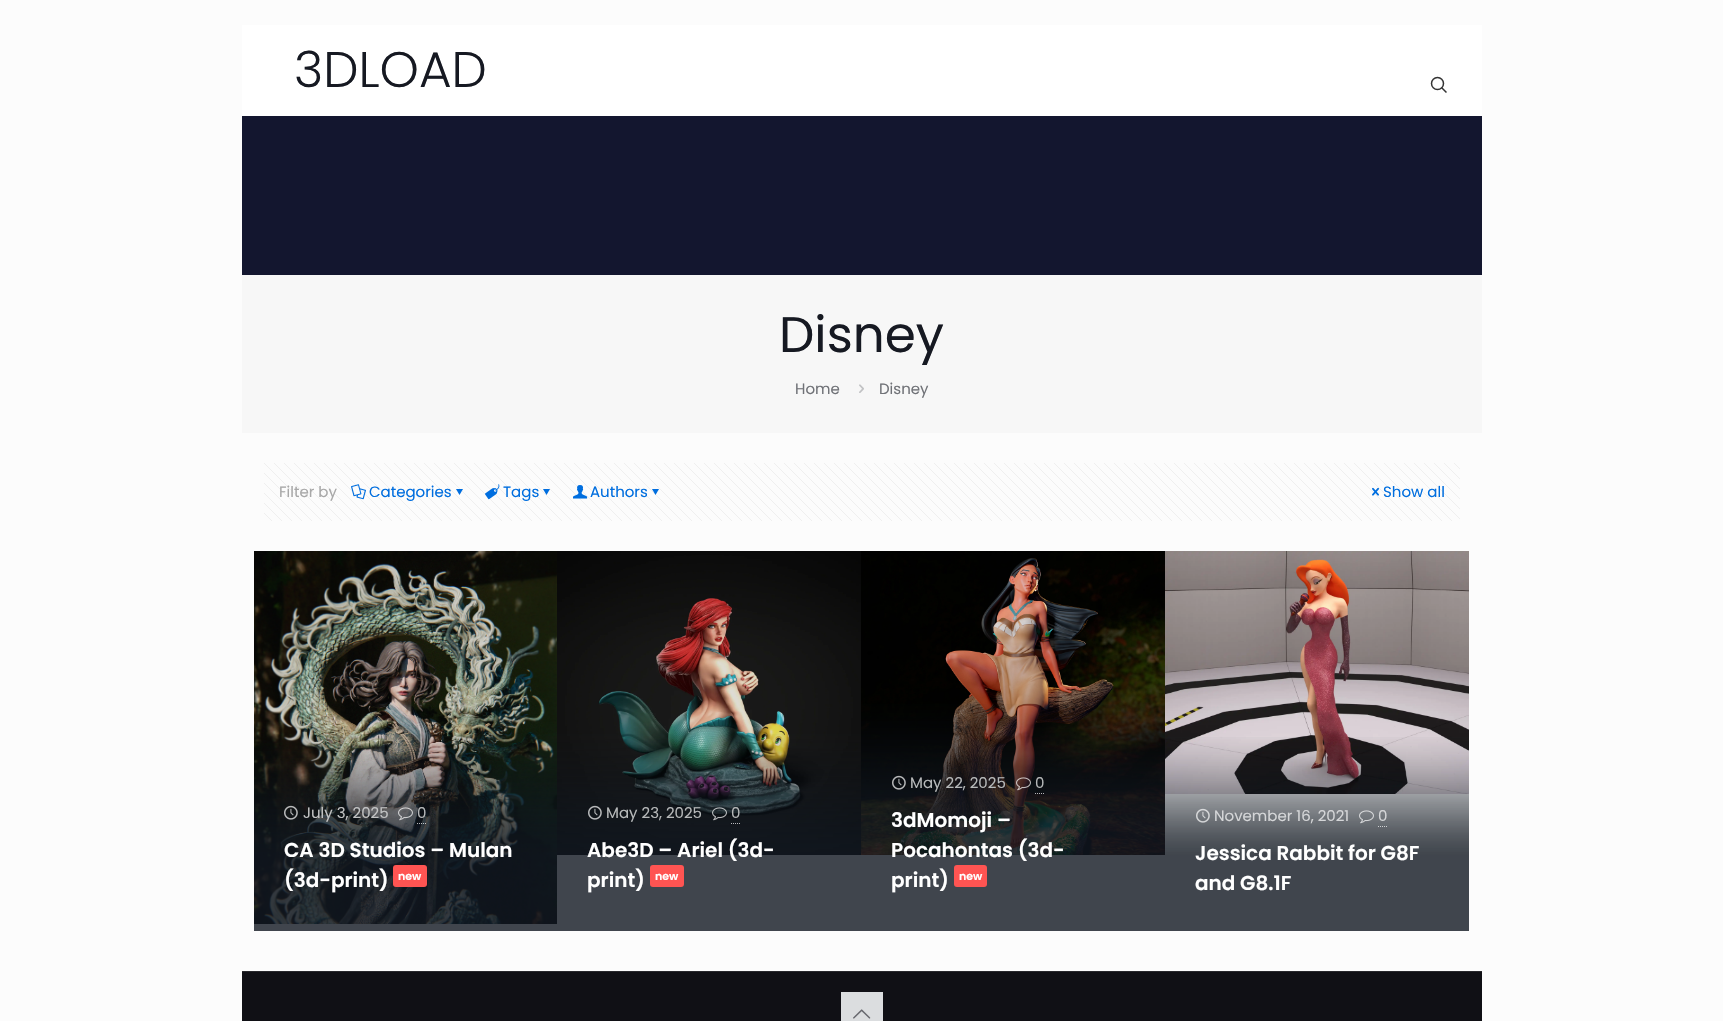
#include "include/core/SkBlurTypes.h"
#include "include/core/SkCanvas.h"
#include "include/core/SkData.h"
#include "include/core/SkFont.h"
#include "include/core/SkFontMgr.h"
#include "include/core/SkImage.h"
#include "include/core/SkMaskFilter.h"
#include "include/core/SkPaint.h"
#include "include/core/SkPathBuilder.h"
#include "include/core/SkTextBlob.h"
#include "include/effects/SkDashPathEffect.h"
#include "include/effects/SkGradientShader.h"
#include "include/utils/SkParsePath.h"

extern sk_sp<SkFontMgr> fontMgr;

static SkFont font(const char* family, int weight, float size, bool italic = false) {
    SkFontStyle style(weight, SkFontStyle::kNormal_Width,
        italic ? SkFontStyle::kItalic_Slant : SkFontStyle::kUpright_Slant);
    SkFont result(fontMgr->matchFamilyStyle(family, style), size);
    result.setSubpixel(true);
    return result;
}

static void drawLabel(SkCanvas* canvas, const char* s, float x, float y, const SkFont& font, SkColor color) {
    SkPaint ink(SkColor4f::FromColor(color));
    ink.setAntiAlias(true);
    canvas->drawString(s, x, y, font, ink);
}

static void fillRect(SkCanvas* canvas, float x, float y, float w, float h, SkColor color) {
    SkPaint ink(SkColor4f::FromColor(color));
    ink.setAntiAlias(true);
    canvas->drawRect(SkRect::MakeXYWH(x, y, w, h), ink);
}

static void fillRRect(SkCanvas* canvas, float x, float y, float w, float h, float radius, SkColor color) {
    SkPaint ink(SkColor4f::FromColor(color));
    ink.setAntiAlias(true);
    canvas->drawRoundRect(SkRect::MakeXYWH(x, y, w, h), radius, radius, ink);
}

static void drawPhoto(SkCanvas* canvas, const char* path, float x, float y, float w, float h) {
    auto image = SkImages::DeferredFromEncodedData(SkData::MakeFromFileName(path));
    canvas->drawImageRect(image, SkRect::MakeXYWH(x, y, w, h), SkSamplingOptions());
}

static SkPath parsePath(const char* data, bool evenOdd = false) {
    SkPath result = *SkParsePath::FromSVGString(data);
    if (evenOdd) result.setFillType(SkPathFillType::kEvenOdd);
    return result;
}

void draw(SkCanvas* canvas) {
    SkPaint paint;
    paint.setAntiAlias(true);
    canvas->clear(0xFFFCFCFC);
    fillRect(canvas, 242, 116, 1240, 159, 0xFF13162F);
    fillRect(canvas, 242, 25, 1240, 91, 0xFFFFFFFF);
    SkFont font1 = font("Poppins", 300, 50);
    drawLabel(canvas, "3DLOAD", 294, 87, font1, 0xFF161922);
    paint.setStroke(true);
    paint.setStrokeWidth(1.5f);
    paint.setColor(0xFF333333);
    canvas->drawCircle(1437.5f, 83.5f, 6, paint);
    canvas->drawPath(parsePath("M1441.5 87.5L1446.5 92.5"), paint);
    fillRect(canvas, 242, 275, 1240, 158, 0xFFF7F7F7);
    SkFont font2 = font("Poppins", 400, 50);
    drawLabel(canvas, "Disney", 779, 352, font2, 0xFF161922);
    SkFont font3 = font("Poppins", 400, 15);
    drawLabel(canvas, "Home", 795, 394, font3, 0xFF707277);
    drawPhoto(canvas, "assets/img1.png", 859, 384, 5, 9);
    drawLabel(canvas, "Disney", 879, 394, font3, 0xFF707277);
    drawPhoto(canvas, "assets/img2.png", 264, 463, 1196, 58);
    drawLabel(canvas, "Filter by", 279, 497, font3, 0xFFA8A8A8);
    drawPhoto(canvas, "assets/img3.png", 351, 484, 15, 16);
    drawLabel(canvas, "Categories", 369, 497, font3, 0xFF006EDF);
    paint.setStroke(false);
    paint.setColor(0xFF006EDF);
    canvas->drawPath(parsePath("M463 489L459.5 495L456 489Z"), paint);
    drawPhoto(canvas, "assets/img4.png", 485, 484, 15, 16);
    drawLabel(canvas, "Tags", 503, 497, font3, 0xFF006EDF);
    canvas->drawPath(parsePath("M550 489L546.5 495L543 489Z"), paint);
    drawPhoto(canvas, "assets/img5.png", 573, 485, 15, 14);
    drawLabel(canvas, "Authors", 590, 497, font3, 0xFF006EDF);
    canvas->drawPath(parsePath("M659 489L655.5 495L652 489Z"), paint);
    drawPhoto(canvas, "assets/img6.png", 1372, 487, 7, 9);
    drawLabel(canvas, "Show all", 1383, 497, font3, 0xFF006EDF);
    drawPhoto(canvas, "assets/img7.png", 254, 551, 303, 373);
    drawPhoto(canvas, "assets/img8.png", 254, 734, 303, 197);
    drawPhoto(canvas, "assets/img9.png", 284, 805, 14, 15);
    drawLabel(canvas, "July 3, 2025", 303, 818, font3, 0xFFC2C3C4);
    drawPhoto(canvas, "assets/img10.png", 398, 807, 15, 14);
    drawLabel(canvas, "0", 417, 818, font3, 0xFFB7B9BA);
    paint.setStroke(true);
    paint.setStrokeWidth(1);
    paint.setColor(0xB3FFFFFF);
    paint.setPathEffect(SkDashPathEffect::Make({{1, 1}}, 0));
    canvas->drawPath(parsePath("M417 823.5H427"), paint);
    paint.setPathEffect(nullptr);
    SkFont font4 = font("Poppins", 600, 20);
    drawLabel(canvas, "CA 3D Studios – Mulan", 284, 857, font4, 0xFFFFFFFF);
    drawLabel(canvas, "(3d-print)", 284, 887, font4, 0xFFFFFFFF);
    fillRRect(canvas, 393, 865, 34, 22, 3, 0xFFFF5452);
    SkFont font5 = font("Poppins", 600, 11);
    drawLabel(canvas, "new", 398, 880, font5, 0xFFFFFFFF);
    drawPhoto(canvas, "assets/img11.png", 557, 551, 304, 304);
    drawPhoto(canvas, "assets/img12.png", 557, 734, 304, 197);
    drawPhoto(canvas, "assets/img13.png", 588, 805, 14, 15);
    drawLabel(canvas, "May 23, 2025", 606, 818, font3, 0xFFB7B9BA);
    drawPhoto(canvas, "assets/img14.png", 712, 807, 15, 14);
    drawLabel(canvas, "0", 731, 818, font3, 0xFFB7B9BA);
    paint.setColor(0xFFB8B9BB);
    paint.setPathEffect(SkDashPathEffect::Make({{1, 1}}, 0));
    canvas->drawPath(parsePath("M731 823.5H741"), paint);
    paint.setPathEffect(nullptr);
    drawLabel(canvas, "Abe3D – Ariel (3d-", 587, 857, font4, 0xFFFFFFFF);
    drawLabel(canvas, "print)", 587, 887, font4, 0xFFFFFFFF);
    fillRRect(canvas, 650, 865, 34, 22, 3, 0xFFFF5452);
    drawLabel(canvas, "new", 655, 880, font5, 0xFFFFFFFF);
    drawPhoto(canvas, "assets/img15.png", 861, 551, 304, 304);
    drawPhoto(canvas, "assets/img16.png", 861, 704, 304, 227);
    drawPhoto(canvas, "assets/img17.png", 892, 775, 14, 15);
    drawLabel(canvas, "May 22, 2025", 910, 788, font3, 0xFFB7B9BA);
    drawPhoto(canvas, "assets/img18.png", 1016, 777, 15, 14);
    drawLabel(canvas, "0", 1035, 788, font3, 0xFFB7B9BA);
    paint.setColor(0xFFB7B7B9);
    paint.setPathEffect(SkDashPathEffect::Make({{1, 1}}, 0));
    canvas->drawPath(parsePath("M1035 793.5H1045"), paint);
    paint.setPathEffect(nullptr);
    drawLabel(canvas, "3dMomoji –", 891, 827, font4, 0xFFFFFFFF);
    drawLabel(canvas, "Pocahontas (3d-", 891, 857, font4, 0xFFFFFFFF);
    drawLabel(canvas, "print)", 891, 887, font4, 0xFFFFFFFF);
    fillRRect(canvas, 954, 865, 33, 22, 3, 0xFFFF5452);
    drawLabel(canvas, "new", 959, 880, font5, 0xFFFFFFFF);
    drawPhoto(canvas, "assets/img19.png", 1165, 551, 304, 243);
    drawPhoto(canvas, "assets/img20.png", 1165, 737, 304, 194);
    drawPhoto(canvas, "assets/img21.png", 1196, 808, 14, 15);
    drawLabel(canvas, "November 16, 2021", 1214, 821, font3, 0xFFD5D6D8);
    drawPhoto(canvas, "assets/img22.png", 1359, 810, 15, 14);
    drawLabel(canvas, "0", 1378, 821, font3, 0xFFD5D6D8);
    paint.setColor(0xFFD0D1D3);
    paint.setPathEffect(SkDashPathEffect::Make({{1, 1}}, 0));
    canvas->drawPath(parsePath("M1378 826.5H1388"), paint);
    paint.setPathEffect(nullptr);
    drawLabel(canvas, "Jessica Rabbit for G8F", 1195, 860, font4, 0xFFFFFFFF);
    drawLabel(canvas, "and G8.1F", 1195, 890, font4, 0xFFFFFFFF);
    fillRect(canvas, 242, 972, 1240, 49, 0xFF101015);
    fillRect(canvas, 242, 971, 1240, 1, 0xFF28282C);
    fillRect(canvas, 841, 992, 42, 29, 0xFFDBDDDF);
    drawPhoto(canvas, "assets/img23.png", 853, 1009, 18, 10);
}
